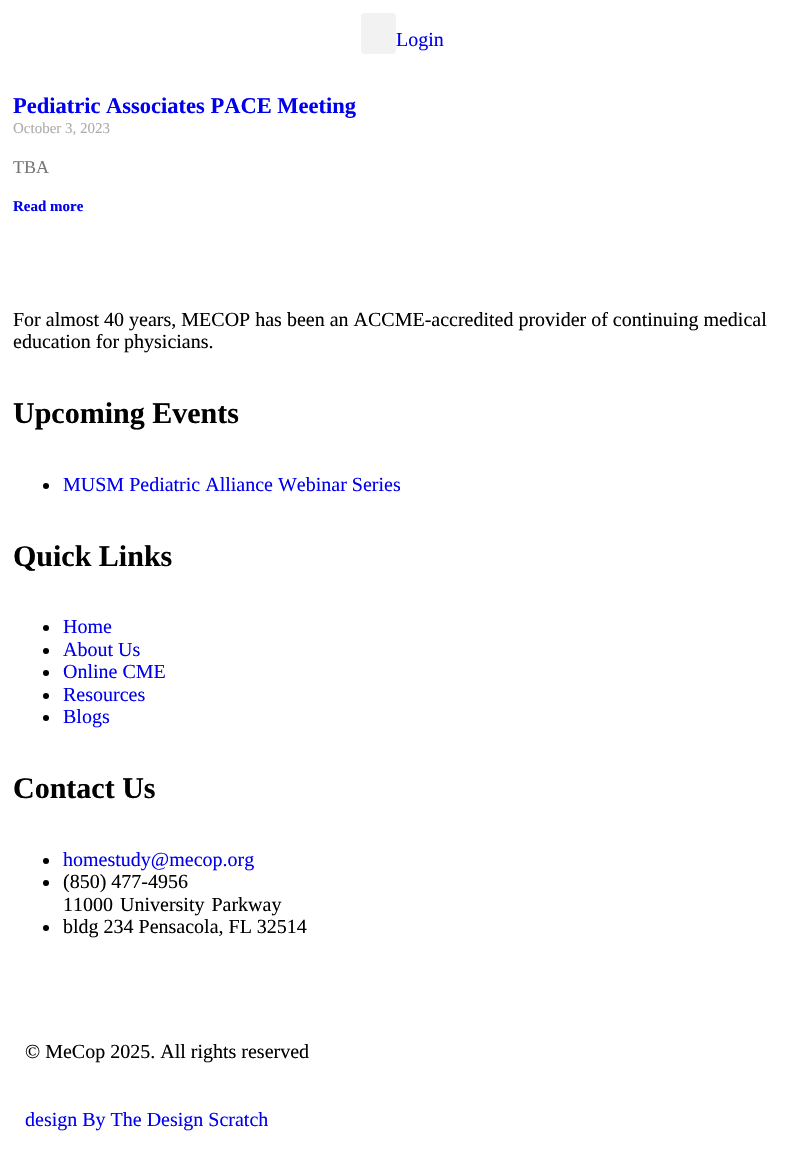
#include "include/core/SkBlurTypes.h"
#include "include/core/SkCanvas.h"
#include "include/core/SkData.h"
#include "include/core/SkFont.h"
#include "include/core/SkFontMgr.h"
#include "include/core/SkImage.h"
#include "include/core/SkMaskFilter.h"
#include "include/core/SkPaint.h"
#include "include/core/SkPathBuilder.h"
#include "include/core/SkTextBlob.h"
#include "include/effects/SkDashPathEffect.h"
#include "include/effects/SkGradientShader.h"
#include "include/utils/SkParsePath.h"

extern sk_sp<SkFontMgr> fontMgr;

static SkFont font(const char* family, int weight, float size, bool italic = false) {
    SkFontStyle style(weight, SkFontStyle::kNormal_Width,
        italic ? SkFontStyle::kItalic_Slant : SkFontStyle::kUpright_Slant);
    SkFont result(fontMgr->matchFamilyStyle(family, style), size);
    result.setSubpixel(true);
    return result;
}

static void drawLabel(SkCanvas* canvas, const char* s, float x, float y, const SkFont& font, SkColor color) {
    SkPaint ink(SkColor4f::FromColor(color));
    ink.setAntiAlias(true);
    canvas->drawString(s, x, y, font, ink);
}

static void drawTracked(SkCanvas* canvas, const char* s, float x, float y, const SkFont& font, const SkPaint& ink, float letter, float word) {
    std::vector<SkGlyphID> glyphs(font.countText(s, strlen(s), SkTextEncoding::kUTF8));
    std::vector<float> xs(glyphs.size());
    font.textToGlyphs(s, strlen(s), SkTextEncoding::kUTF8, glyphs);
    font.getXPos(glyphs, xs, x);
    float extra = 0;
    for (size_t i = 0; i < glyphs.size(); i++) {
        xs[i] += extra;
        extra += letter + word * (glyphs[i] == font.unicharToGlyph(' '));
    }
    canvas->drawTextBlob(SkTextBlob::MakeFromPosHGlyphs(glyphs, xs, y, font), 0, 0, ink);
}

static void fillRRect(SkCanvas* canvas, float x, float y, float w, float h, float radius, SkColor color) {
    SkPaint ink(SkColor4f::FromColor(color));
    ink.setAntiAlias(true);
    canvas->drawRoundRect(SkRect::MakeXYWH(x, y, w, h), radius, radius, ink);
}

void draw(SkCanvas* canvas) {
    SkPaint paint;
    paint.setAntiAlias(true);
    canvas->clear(0xFFFFFFFF);
    fillRRect(canvas, 361, 13, 35, 41, 4, 0xFFF2F2F2);
    SkFont font1 = font("Liberation Serif", 400, 20);
    drawLabel(canvas, "Login", 396, 46, font1, 0xFF0000EE);
    SkFont font2 = font("Liberation Serif", 700, 22.5f);
    drawLabel(canvas, "Pediatric Associates PACE Meeting", 13, 113, font2, 0xFF0000EE);
    SkFont font3 = font("Liberation Serif", 400, 15);
    drawLabel(canvas, "October 3, 2023", 13, 133, font3, 0xFFADADAD);
    canvas->save();
    canvas->clipRect(SkRect::MakeXYWH(13, 93, 765, 123));
    SkFont font4 = font("Liberation Serif", 400, 18);
    drawLabel(canvas, "TBA", 13, 173, font4, 0xFF777777);
    canvas->restore();
    SkFont font5 = font("Liberation Serif", 700, 15);
    drawLabel(canvas, "Read more", 13, 211, font5, 0xFF0000EE);
    drawLabel(canvas, "For almost 40 years, MECOP has been an ACCME-accredited provider of continuing medical", 13, 326, font1, 0xFF000000);
    drawLabel(canvas, "education for physicians.", 13, 348, font1, 0xFF000000);
    SkFont font6 = font("Liberation Serif", 700, 30);
    drawLabel(canvas, "Upcoming Events", 13, 423, font6, 0xFF000000);
    paint.setColor(0xFF000000);
    canvas->drawCircle(46, 486, 3, paint);
    drawLabel(canvas, "MUSM Pediatric Alliance Webinar Series", 63, 491, font1, 0xFF0000EE);
    drawLabel(canvas, "Quick Links", 13, 566, font6, 0xFF000000);
    canvas->drawCircle(46, 628, 3, paint);
    drawLabel(canvas, "Home", 63, 633, font1, 0xFF0000EE);
    canvas->drawCircle(46, 651, 3, paint);
    drawLabel(canvas, "About Us", 63, 656, font1, 0xFF0000EE);
    canvas->drawCircle(46, 673, 3, paint);
    drawLabel(canvas, "Online CME", 63, 678, font1, 0xFF0000EE);
    canvas->drawCircle(46, 696, 3, paint);
    drawLabel(canvas, "Resources", 63, 701, font1, 0xFF0000EE);
    canvas->drawCircle(46, 718, 3, paint);
    drawLabel(canvas, "Blogs", 63, 723, font1, 0xFF0000EE);
    drawLabel(canvas, "Contact Us", 13, 798, font6, 0xFF000000);
    canvas->drawCircle(46, 861, 3, paint);
    drawLabel(canvas, "homestudy@mecop.org", 63, 866, font1, 0xFF0000EE);
    canvas->drawCircle(46, 883, 3, paint);
    drawLabel(canvas, "(850) 477-4956", 63, 888, font1, 0xFF000000);
    canvas->drawCircle(46, 928, 3, paint);
    drawTracked(canvas, "11000 University Parkway", 63, 911, font1, paint, 0, 2);
    drawLabel(canvas, "bldg 234 Pensacola, FL 32514", 63, 933, font1, 0xFF000000);
    drawLabel(canvas, "© MeCop 2025. All rights reserved", 25, 1058, font1, 0xFF000000);
    drawLabel(canvas, "design By The Design Scratch", 25, 1126, font1, 0xFF0000EE);
}
